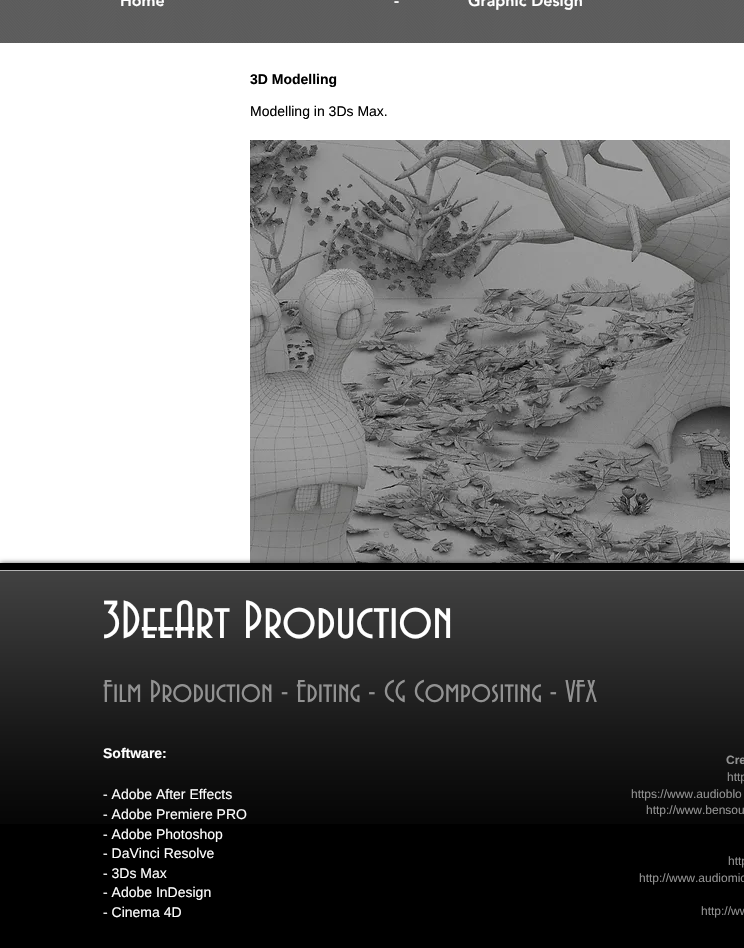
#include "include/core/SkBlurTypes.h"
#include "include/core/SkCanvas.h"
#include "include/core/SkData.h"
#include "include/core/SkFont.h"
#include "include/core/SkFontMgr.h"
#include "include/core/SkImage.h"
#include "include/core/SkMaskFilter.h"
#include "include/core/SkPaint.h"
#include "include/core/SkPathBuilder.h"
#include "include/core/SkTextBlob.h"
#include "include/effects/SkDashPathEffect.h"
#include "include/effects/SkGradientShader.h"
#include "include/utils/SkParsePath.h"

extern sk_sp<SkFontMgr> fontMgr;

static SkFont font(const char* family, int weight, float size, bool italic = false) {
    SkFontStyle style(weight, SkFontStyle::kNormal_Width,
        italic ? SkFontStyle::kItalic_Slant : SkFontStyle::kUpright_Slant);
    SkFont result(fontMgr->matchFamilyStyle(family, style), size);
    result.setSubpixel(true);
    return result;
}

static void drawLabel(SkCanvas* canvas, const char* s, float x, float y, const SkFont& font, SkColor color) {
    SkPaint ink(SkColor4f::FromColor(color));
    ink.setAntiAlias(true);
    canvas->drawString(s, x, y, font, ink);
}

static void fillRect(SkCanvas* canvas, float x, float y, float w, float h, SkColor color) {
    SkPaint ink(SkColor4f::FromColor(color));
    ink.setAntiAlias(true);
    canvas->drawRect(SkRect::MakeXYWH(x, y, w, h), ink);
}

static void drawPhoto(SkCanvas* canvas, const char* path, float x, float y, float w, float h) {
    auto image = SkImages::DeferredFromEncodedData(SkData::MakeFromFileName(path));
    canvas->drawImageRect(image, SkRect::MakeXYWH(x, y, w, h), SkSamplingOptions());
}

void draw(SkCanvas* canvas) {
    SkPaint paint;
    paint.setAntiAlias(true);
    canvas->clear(0xFFA7A7A7);
    drawPhoto(canvas, "assets/img1.png", 0, 0, 744, 43);
    fillRect(canvas, 0, 0, 744, 43, 0xDB232323);
    fillRect(canvas, 0, 0, 744, 43, 0x33FFFFFF);
    SkFont font1 = font("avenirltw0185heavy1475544", 900, 16);
    drawLabel(canvas, "Home", 120, 6, font1, 0xFFFFFFFF);
    drawLabel(canvas, "-", 394, 6, font1, 0xFFFFFFFF);
    drawLabel(canvas, "Graphic Design", 468, 6, font1, 0xFFFFFFFF);
    fillRect(canvas, 0, 43, 744, 520, 0xFFFFFFFF);
    SkFont font2 = font("Liberation Sans", 700, 14);
    drawLabel(canvas, "3D Modelling", 250, 84, font2, 0xFF000000);
    SkFont font3 = font("Liberation Sans", 400, 14);
    drawLabel(canvas, "Modelling in 3Ds Max.", 250, 116, font3, 0xFF000000);
    drawPhoto(canvas, "assets/img2.png", 250, 140, 480, 423);
    SkFont font4 = font("Liberation Sans", 400, 12);
    drawLabel(canvas, "e", 383, 538, font4, 0xFF787878);
    paint.setColor(0x99000000);
    paint.setMaskFilter(SkMaskFilter::MakeBlur(kNormal_SkBlurStyle, 2.5f));
    canvas->drawRect(SkRect::MakeXYWH(0, 563, 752, 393), paint);
    paint.setMaskFilter(nullptr);
    fillRect(canvas, 0, 563, 744, 385, 0xFF000000);
    drawPhoto(canvas, "assets/img3.png", 0, 571, 744, 253);
    fillRect(canvas, 0, 570, 744, 1, 0xFFB3B3B3);
    SkFont font5 = font("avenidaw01", 400, 56);
    drawLabel(canvas, "3DeeArt Production", 103, 638, font5, 0xFFFFFFFF);
    SkFont font6 = font("avenidaw01", 400, 33);
    drawLabel(canvas, "Film Production - Editing - CG Compositing - VFX", 103, 702, font6, 0xFF929292);
    drawLabel(canvas, "Software:", 103, 758, font2, 0xFFFFFFFF);
    drawLabel(canvas, "- Adobe After Effects", 103, 799, font3, 0xFFFFFFFF);
    drawLabel(canvas, "- Adobe Premiere PRO", 103, 819, font3, 0xFFFFFFFF);
    drawLabel(canvas, "- Adobe Photoshop", 103, 839, font3, 0xFFFFFFFF);
    drawLabel(canvas, "- DaVinci Resolve", 103, 858, font3, 0xFFFFFFFF);
    drawLabel(canvas, "- 3Ds Max", 103, 878, font3, 0xFFFFFFFF);
    drawLabel(canvas, "- Adobe InDesign", 103, 897, font3, 0xFFFFFFFF);
    drawLabel(canvas, "- Cinema 4D", 103, 917, font3, 0xFFFFFFFF);
    SkFont font7 = font("Liberation Sans", 700, 12);
    drawLabel(canvas, "Cre", 726, 764, font7, 0xFF929292);
    drawLabel(canvas, "http", 727, 781, font4, 0xFF929292);
    drawLabel(canvas, "https://www.audioblo", 631, 798, font4, 0xFF929292);
    drawLabel(canvas, "http://www.bensou", 646, 814, font4, 0xFF929292);
    drawLabel(canvas, "http", 728, 865, font4, 0xFF929292);
    drawLabel(canvas, "http://www.audiomic", 639, 882, font4, 0xFF929292);
    drawLabel(canvas, "http://ww", 701, 915, font4, 0xFF929292);
}
